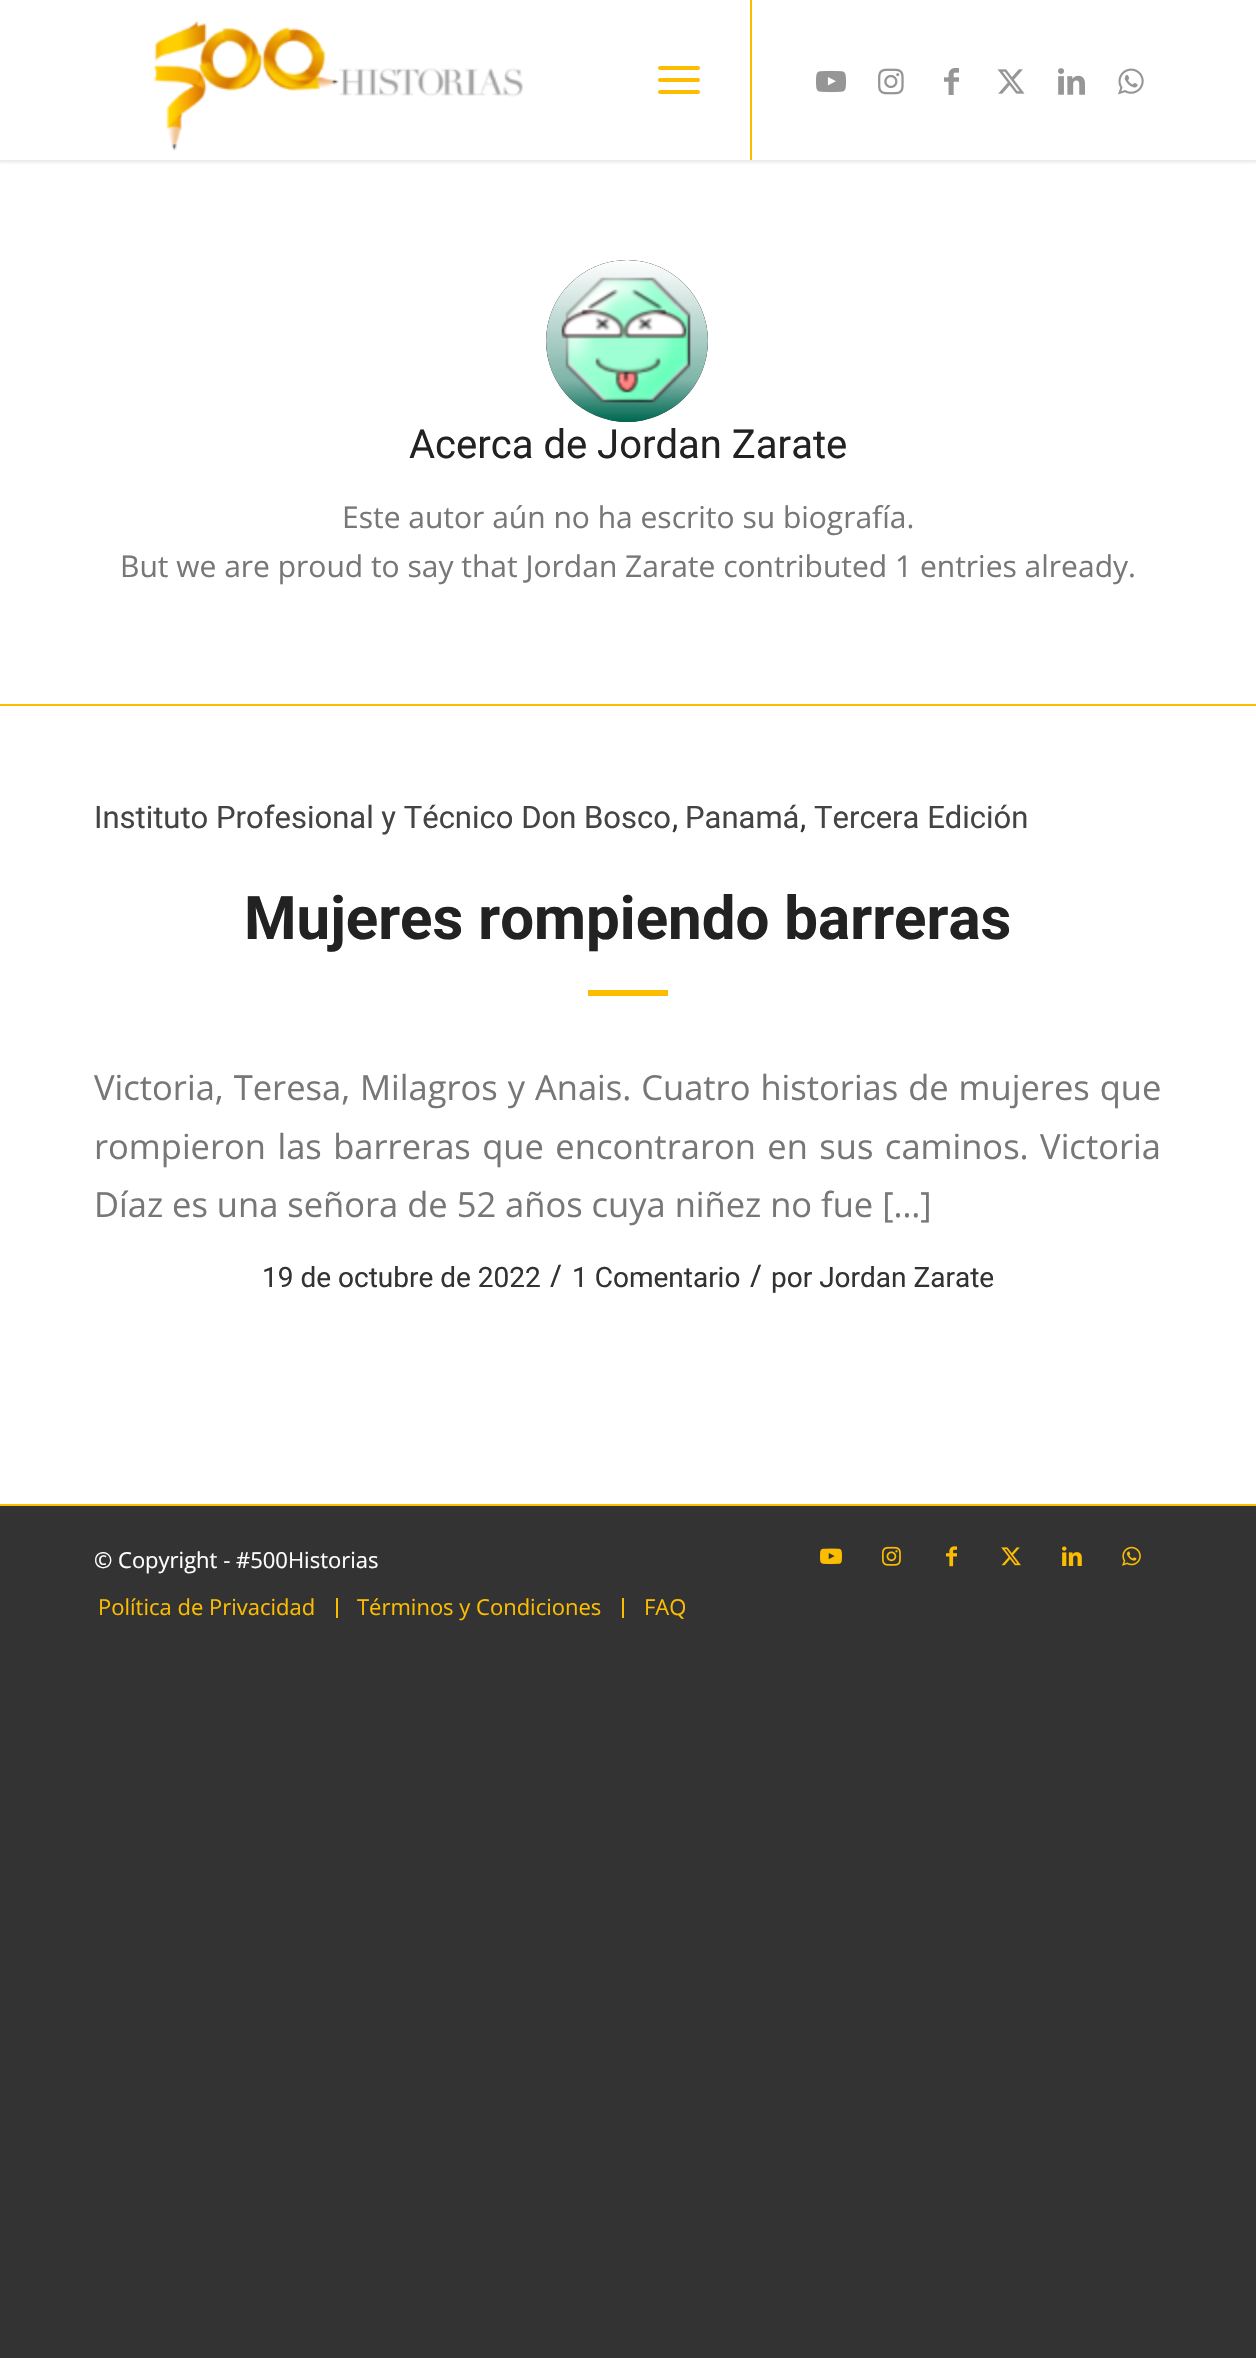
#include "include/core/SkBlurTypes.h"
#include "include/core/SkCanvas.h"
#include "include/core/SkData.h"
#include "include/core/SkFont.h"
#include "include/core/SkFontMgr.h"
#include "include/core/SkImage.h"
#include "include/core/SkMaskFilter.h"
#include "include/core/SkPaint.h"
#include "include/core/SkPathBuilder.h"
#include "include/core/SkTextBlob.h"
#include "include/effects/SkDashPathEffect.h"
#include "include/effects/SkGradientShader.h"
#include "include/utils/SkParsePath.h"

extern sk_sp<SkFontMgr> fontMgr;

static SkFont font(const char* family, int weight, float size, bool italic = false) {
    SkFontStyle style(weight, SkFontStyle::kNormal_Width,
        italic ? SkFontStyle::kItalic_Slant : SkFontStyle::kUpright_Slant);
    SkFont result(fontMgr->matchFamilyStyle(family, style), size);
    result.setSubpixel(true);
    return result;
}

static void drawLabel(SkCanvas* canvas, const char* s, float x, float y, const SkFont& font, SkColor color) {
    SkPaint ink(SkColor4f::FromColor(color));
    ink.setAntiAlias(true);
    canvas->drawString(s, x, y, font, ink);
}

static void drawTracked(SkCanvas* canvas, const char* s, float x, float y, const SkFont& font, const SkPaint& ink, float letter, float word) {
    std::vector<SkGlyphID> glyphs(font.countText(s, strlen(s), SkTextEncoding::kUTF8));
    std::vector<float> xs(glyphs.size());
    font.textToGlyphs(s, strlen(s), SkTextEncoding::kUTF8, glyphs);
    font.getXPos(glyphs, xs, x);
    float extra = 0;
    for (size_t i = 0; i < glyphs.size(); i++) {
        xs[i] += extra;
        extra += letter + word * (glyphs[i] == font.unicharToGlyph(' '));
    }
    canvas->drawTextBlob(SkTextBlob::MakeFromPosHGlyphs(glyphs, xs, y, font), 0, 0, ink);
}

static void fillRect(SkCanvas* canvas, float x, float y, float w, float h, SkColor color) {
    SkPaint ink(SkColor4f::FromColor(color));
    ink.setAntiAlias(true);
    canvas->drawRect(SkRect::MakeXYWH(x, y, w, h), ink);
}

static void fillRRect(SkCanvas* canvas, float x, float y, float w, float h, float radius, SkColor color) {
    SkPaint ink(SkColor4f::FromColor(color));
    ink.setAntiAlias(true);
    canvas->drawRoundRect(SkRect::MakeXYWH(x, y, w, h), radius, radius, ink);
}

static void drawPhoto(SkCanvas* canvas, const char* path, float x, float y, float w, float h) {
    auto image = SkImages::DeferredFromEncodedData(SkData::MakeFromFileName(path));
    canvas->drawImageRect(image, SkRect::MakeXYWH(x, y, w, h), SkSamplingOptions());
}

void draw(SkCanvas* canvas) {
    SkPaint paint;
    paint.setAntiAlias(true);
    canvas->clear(0xFF333333);
    fillRect(canvas, 0, 0, 1256, 1504, 0xFFFFFFFF);
    canvas->save();
    canvas->clipRect(SkRect::MakeXYWH(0, 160, 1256, 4));
    paint.setColor(0x1A000000);
    paint.setMaskFilter(SkMaskFilter::MakeBlur(kNormal_SkBlurStyle, 2));
    canvas->drawRect(SkRect::MakeXYWH(-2, -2, 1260, 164), paint);
    paint.setMaskFilter(nullptr);
    canvas->restore();
    drawPhoto(canvas, "assets/img1.png", 154, 20, 369, 131);
    fillRect(canvas, 750, 0, 2, 160, 0xFFFCBD00);
    fillRRect(canvas, 658, 78, 42, 4, 2, 0xFFFCBD00);
    fillRRect(canvas, 658, 66, 42, 4, 2, 0xFFFCBD00);
    fillRRect(canvas, 658, 90, 42, 4, 2, 0xFFFCBD00);
    drawPhoto(canvas, "assets/img2.png", 816, 70, 30, 23);
    drawPhoto(canvas, "assets/img3.png", 878, 68, 26, 27);
    drawPhoto(canvas, "assets/img4.png", 944, 68, 15, 27);
    drawPhoto(canvas, "assets/img5.png", 997, 69, 28, 25);
    drawPhoto(canvas, "assets/img6.png", 1058, 68, 27, 27);
    drawPhoto(canvas, "assets/img7.png", 1118, 68, 26, 27);
    paint.setColor(0xFF333333);
    canvas->drawCircle(627, 341, 81, paint);
    drawPhoto(canvas, "assets/img8.png", 546, 260, 162, 162);
    SkFont font1 = font("Roboto", 400, 40);
    drawLabel(canvas, "Acerca de Jordan Zarate", 409, 458, font1, 0xFF222222);
    SkFont font2 = font("Open Sans", 400, 30);
    drawLabel(canvas, "Este autor aún no ha escrito su biografía.", 342, 528, font2, 0xFF777777);
    drawLabel(canvas, "But we are proud to say that Jordan Zarate contributed 1 entries already.", 120, 577, font2, 0xFF777777);
    fillRect(canvas, 0, 704, 1256, 2, 0xFFFCBD00);
    SkFont font3 = font("Roboto", 400, 31);
    drawLabel(canvas, "Instituto Profesional y Técnico Don Bosco", 94, 828, font3, 0xFF444444);
    drawLabel(canvas, ",", 672, 828, font3, 0xFF333333);
    drawLabel(canvas, "Panamá", 685, 828, font3, 0xFF444444);
    drawLabel(canvas, ",", 800, 828, font3, 0xFF333333);
    drawLabel(canvas, "Tercera Edición", 814, 828, font3, 0xFF444444);
    SkFont font4 = font("Roboto", 700, 60);
    drawLabel(canvas, "Mujeres rompiendo barreras", 244, 939, font4, 0xFF222222);
    fillRect(canvas, 588, 990, 80, 6, 0xFFFCBD00);
    SkFont font5 = font("Open Sans", 400, 34.5f);
    paint.setColor(0xFF777777);
    drawTracked(canvas, "Victoria, Teresa, Milagros y Anais. Cuatro historias de mujeres que", 94, 1100, font5, paint, 0, 1);
    drawTracked(canvas, "rompieron las barreras que encontraron en sus caminos. Victoria", 94, 1159, font5, paint, 0, 2.5f);
    drawLabel(canvas, "Díaz es una señora de 52 años cuya niñez no fue […]", 94, 1217, font5, 0xFF777777);
    SkFont font6 = font("Roboto", 400, 28);
    drawLabel(canvas, "19 de octubre de 2022", 262, 1287, font6, 0xFF333333);
    SkFont font7 = font("Open Sans", 400, 31);
    drawLabel(canvas, "/", 550, 1287, font7, 0xFF333333);
    drawLabel(canvas, "1 Comentario", 572, 1287, font6, 0xFF333333);
    drawLabel(canvas, "/", 750, 1287, font7, 0xFF333333);
    drawLabel(canvas, "por Jordan Zarate", 771, 1287, font6, 0xFF333333);
    fillRect(canvas, 0, 1504, 1256, 2, 0xFFFCBD00);
    SkFont font8 = font("Open Sans", 400, 22);
    drawLabel(canvas, "© Copyright - #500Historias", 94, 1568, font8, 0xFFFFFFFF);
    drawPhoto(canvas, "assets/img9.png", 820, 1548, 22, 17);
    drawPhoto(canvas, "assets/img10.png", 882, 1546, 19, 20);
    drawPhoto(canvas, "assets/img11.png", 946, 1546, 11, 21);
    drawPhoto(canvas, "assets/img12.png", 1001, 1547, 20, 19);
    drawPhoto(canvas, "assets/img13.png", 1062, 1546, 20, 20);
    drawPhoto(canvas, "assets/img14.png", 1122, 1546, 19, 20);
    drawLabel(canvas, "Política de Privacidad", 98, 1615, font8, 0xFFFCBD00);
    fillRect(canvas, 336, 1598, 2, 20, 0xFFFCBD00);
    drawLabel(canvas, "Términos y Condiciones", 357, 1615, font8, 0xFFFCBD00);
    fillRect(canvas, 622, 1598, 2, 20, 0xFFFCBD00);
    drawLabel(canvas, "FAQ", 644, 1615, font8, 0xFFFCBD00);
}
